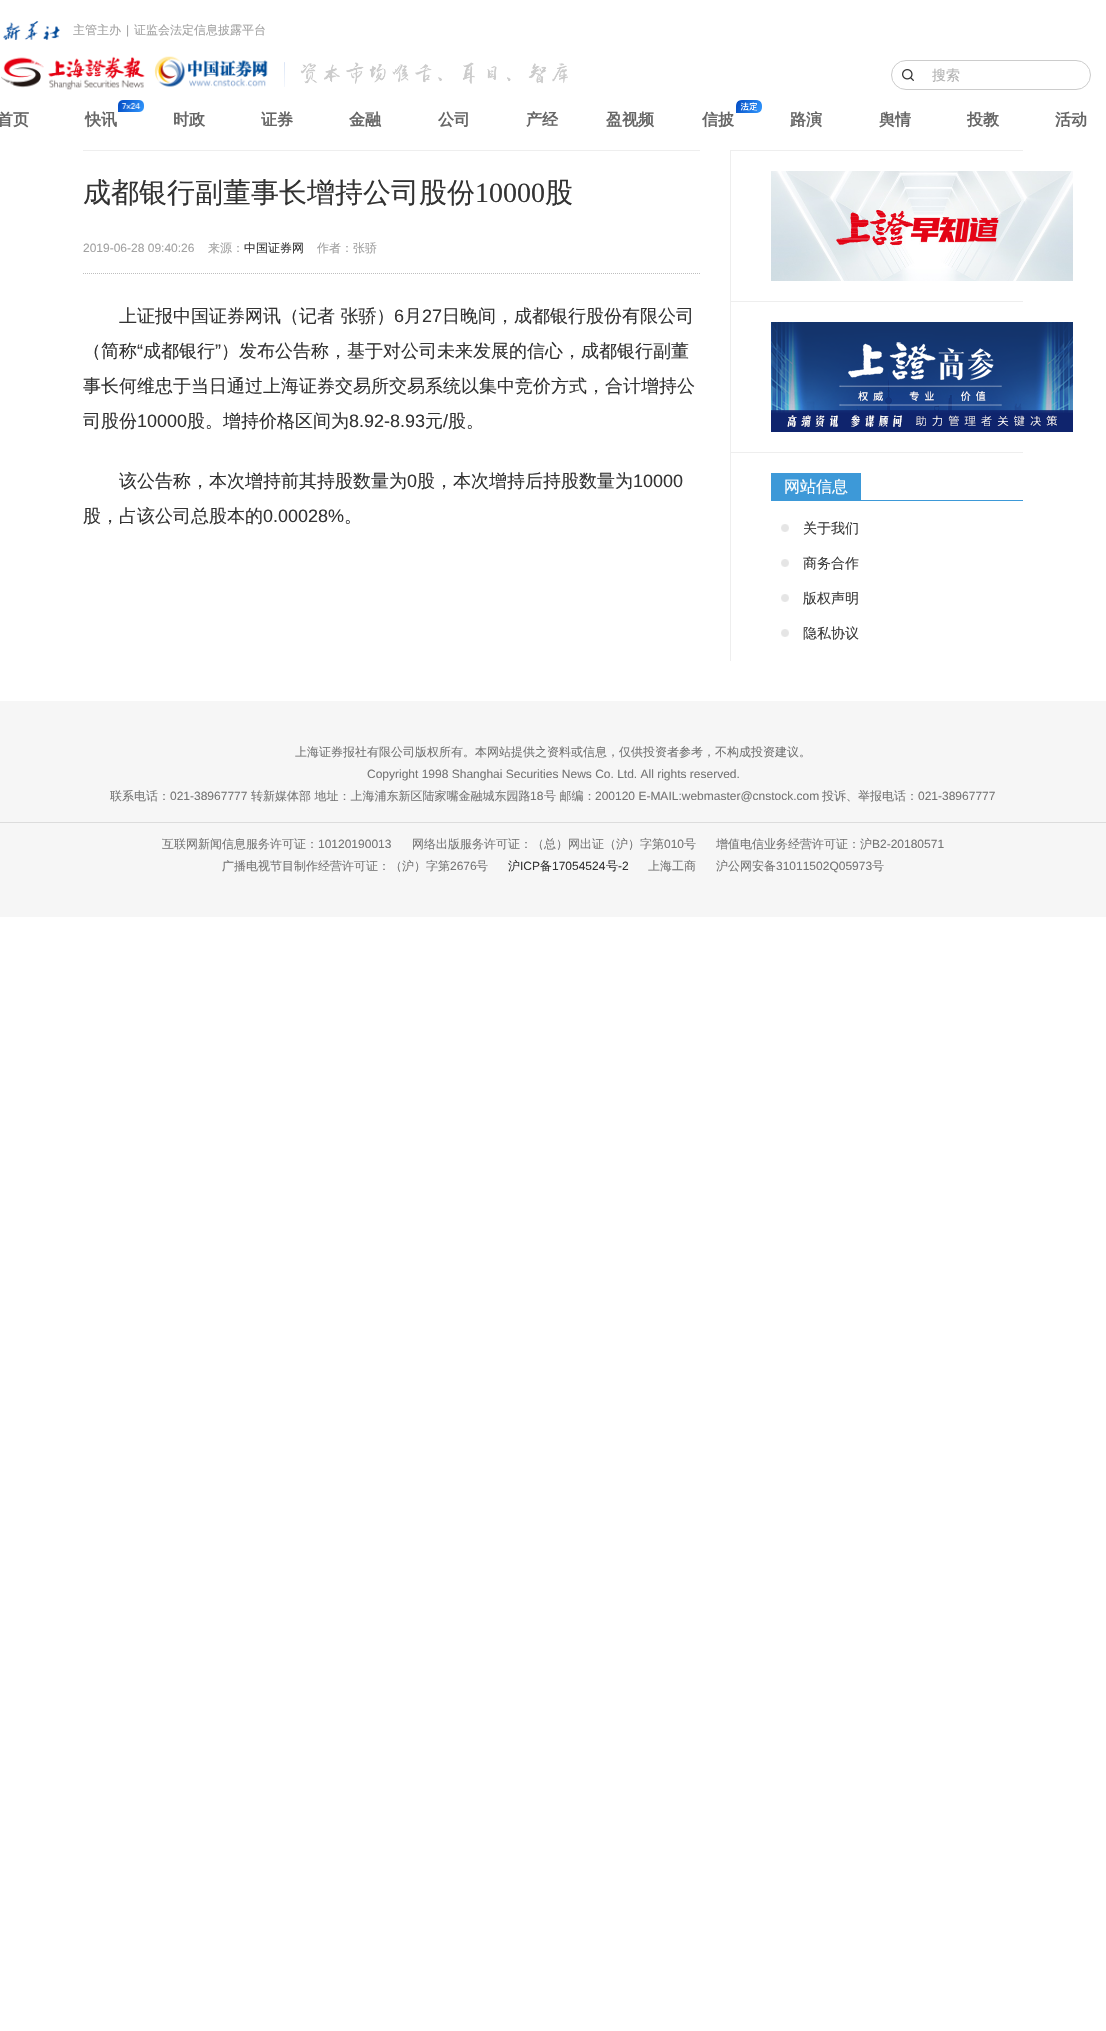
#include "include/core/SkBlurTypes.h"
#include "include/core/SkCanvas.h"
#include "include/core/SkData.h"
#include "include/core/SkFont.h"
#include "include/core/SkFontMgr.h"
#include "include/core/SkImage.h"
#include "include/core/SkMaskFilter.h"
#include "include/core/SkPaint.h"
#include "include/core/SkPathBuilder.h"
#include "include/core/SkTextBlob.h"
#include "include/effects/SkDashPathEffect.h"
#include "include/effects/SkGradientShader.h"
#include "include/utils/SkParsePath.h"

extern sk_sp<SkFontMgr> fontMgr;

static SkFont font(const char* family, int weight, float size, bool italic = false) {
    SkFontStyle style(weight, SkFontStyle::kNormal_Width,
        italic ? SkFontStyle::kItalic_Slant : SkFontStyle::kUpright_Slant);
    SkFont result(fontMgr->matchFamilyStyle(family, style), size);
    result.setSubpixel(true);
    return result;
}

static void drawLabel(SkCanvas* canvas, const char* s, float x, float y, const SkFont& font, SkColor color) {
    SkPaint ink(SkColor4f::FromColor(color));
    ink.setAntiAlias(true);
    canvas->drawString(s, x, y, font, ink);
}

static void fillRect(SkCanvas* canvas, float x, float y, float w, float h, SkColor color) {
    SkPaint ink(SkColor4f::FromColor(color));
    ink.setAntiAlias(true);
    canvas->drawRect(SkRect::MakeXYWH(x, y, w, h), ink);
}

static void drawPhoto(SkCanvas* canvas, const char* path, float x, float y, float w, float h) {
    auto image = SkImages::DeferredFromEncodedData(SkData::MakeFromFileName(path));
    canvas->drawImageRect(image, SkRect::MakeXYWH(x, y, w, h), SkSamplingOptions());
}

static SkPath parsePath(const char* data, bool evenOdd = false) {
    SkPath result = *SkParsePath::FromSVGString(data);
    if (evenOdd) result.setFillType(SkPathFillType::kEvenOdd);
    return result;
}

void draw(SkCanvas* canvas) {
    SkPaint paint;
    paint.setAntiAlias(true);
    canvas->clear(0xFFFFFFFF);
    drawPhoto(canvas, "assets/img1.png", 3, 21, 57, 19);
    SkFont font1 = font("WenQuanYi Zen Hei", 500, 12);
    drawLabel(canvas, "主管主办", 73, 34, font1, 0xFFA2A2A2);
    SkFont font2 = font("Liberation Sans", 400, 12);
    drawLabel(canvas, "|", 126, 34, font2, 0xFFA2A2A2);
    drawLabel(canvas, "证监会法定信息披露平台", 134, 34, font1, 0xFFA2A2A2);
    drawPhoto(canvas, "assets/img2.png", 1, 56, 267, 34);
    drawPhoto(canvas, "assets/img3.png", 284, 62, 284, 25);
    drawPhoto(canvas, "assets/img4.png", 902, 69, 12, 12);
    paint.setStroke(true);
    paint.setStrokeWidth(1);
    paint.setColor(0xFFCCCCCC);
    canvas->drawRoundRect(SkRect::MakeXYWH(891.5f, 60.5f, 199, 29), 14.5f, 14.5f, paint);
    SkFont font3 = font("WenQuanYi Zen Hei", 500, 14);
    drawLabel(canvas, "搜索", 932, 80, font3, 0xFFB3B3B3);
    SkFont font4 = font("WenQuanYi Zen Hei", 700, 16);
    drawLabel(canvas, "首页", -3, 125, font4, 0xFF666666);
    drawPhoto(canvas, "assets/img5.png", 118, 100, 26, 12);
    drawLabel(canvas, "快讯", 85, 125, font4, 0xFF666666);
    drawLabel(canvas, "时政", 173, 125, font4, 0xFF666666);
    drawLabel(canvas, "证券", 261, 125, font4, 0xFF666666);
    drawLabel(canvas, "金融", 349, 125, font4, 0xFF666666);
    drawLabel(canvas, "公司", 438, 125, font4, 0xFF666666);
    drawLabel(canvas, "产经", 526, 125, font4, 0xFF666666);
    drawLabel(canvas, "盈视频", 606, 125, font4, 0xFF666666);
    drawPhoto(canvas, "assets/img6.png", 736, 100, 26, 13);
    drawLabel(canvas, "信披", 702, 125, font4, 0xFF666666);
    drawLabel(canvas, "路演", 790, 125, font4, 0xFF666666);
    drawLabel(canvas, "舆情", 879, 125, font4, 0xFF666666);
    drawLabel(canvas, "投教", 967, 125, font4, 0xFF666666);
    drawLabel(canvas, "活动", 1055, 125, font4, 0xFF666666);
    fillRect(canvas, 83, 150, 617, 1, 0xFFEEEEEE);
    SkFont font5 = font("WenQuanYi Zen Hei", 500, 28);
    drawLabel(canvas, "成都银行副董事长增持公司股份", 83, 202, font5, 0xFF333333);
    SkFont font6 = font("Liberation Serif", 400, 28);
    drawLabel(canvas, "10000", 475, 202, font6, 0xFF333333);
    drawLabel(canvas, "股", 545, 202, font5, 0xFF333333);
    drawLabel(canvas, "2019-06-28 09:40:26", 83, 252, font2, 0xFFA2A2A2);
    drawLabel(canvas, "来源：", 208, 252, font1, 0xFFA2A2A2);
    drawLabel(canvas, "中国证券网", 244, 252, font1, 0xFF333333);
    drawLabel(canvas, "作者：张骄", 317, 252, font1, 0xFFA2A2A2);
    paint.setColor(0xFFBEBEBE);
    paint.setPathEffect(SkDashPathEffect::Make({{1, 1}}, 0));
    canvas->drawPath(parsePath("M83 273.5H700"), paint);
    paint.setPathEffect(nullptr);
    SkFont font7 = font("WenQuanYi Zen Hei", 500, 18);
    drawLabel(canvas, "上证报中国证券网讯（记者 张骄）", 119, 322, font7, 0xFF333333);
    SkFont font8 = font("Liberation Sans", 400, 18);
    drawLabel(canvas, "6", 394, 322, font8, 0xFF333333);
    drawLabel(canvas, "月", 404, 322, font7, 0xFF333333);
    drawLabel(canvas, "27", 422, 322, font8, 0xFF333333);
    drawLabel(canvas, "日晚间，成都银行股份有限公司", 442, 322, font7, 0xFF333333);
    drawLabel(canvas, "（简称", 83, 357, font7, 0xFF333333);
    drawLabel(canvas, "“", 137, 357, font8, 0xFF333333);
    drawLabel(canvas, "成都银行", 143, 357, font7, 0xFF333333);
    drawLabel(canvas, "”", 215, 357, font8, 0xFF333333);
    drawLabel(canvas, "）发布公告称，基于对公司未来发展的信心，成都银行副董", 221, 357, font7, 0xFF333333);
    drawLabel(canvas, "事长何维忠于当日通过上海证券交易所交易系统以集中竞价方式，合计增持公", 83, 392, font7, 0xFF333333);
    drawLabel(canvas, "司股份", 83, 427, font7, 0xFF333333);
    drawLabel(canvas, "10000", 137, 427, font8, 0xFF333333);
    drawLabel(canvas, "股。增持价格区间为", 187, 427, font7, 0xFF333333);
    drawLabel(canvas, "8.92-8.93", 349, 427, font8, 0xFF333333);
    drawLabel(canvas, "元", 425, 427, font7, 0xFF333333);
    drawLabel(canvas, "/", 443, 427, font8, 0xFF333333);
    drawLabel(canvas, "股。", 448, 427, font7, 0xFF333333);
    drawLabel(canvas, "该公告称，本次增持前其持股数量为", 119, 487, font7, 0xFF333333);
    drawLabel(canvas, "0", 407, 487, font8, 0xFF333333);
    drawLabel(canvas, "股，本次增持后持股数量为", 417, 487, font7, 0xFF333333);
    drawLabel(canvas, "10000", 633, 487, font8, 0xFF333333);
    drawLabel(canvas, "股，占该公司总股本的", 83, 522, font7, 0xFF333333);
    drawLabel(canvas, "0.00028%", 263, 522, font8, 0xFF333333);
    drawLabel(canvas, "。", 344, 522, font7, 0xFF333333);
    fillRect(canvas, 730, 150, 1, 511, 0xFFEEEEEE);
    fillRect(canvas, 731, 150, 292, 1, 0xFFEEEEEE);
    drawPhoto(canvas, "assets/img7.png", 771, 171, 302, 110);
    fillRect(canvas, 731, 301, 292, 1, 0xFFEEEEEE);
    drawPhoto(canvas, "assets/img8.png", 771, 322, 302, 110);
    fillRect(canvas, 731, 452, 292, 1, 0xFFEEEEEE);
    fillRect(canvas, 861, 500, 162, 1, 0xFF3D99D8);
    fillRect(canvas, 771, 473, 90, 28, 0xFF3D99D8);
    SkFont font9 = font("WenQuanYi Zen Hei", 500, 16);
    drawLabel(canvas, "网站信息", 784, 492, font9, 0xFFFFFFFF);
    drawPhoto(canvas, "assets/img9.png", 781, 524, 8, 8);
    drawLabel(canvas, "关于我们", 803, 533, font3, 0xFF3A3A3A);
    drawPhoto(canvas, "assets/img9.png", 781, 559, 8, 8);
    drawLabel(canvas, "商务合作", 803, 568, font3, 0xFF3A3A3A);
    drawPhoto(canvas, "assets/img9.png", 781, 594, 8, 8);
    drawLabel(canvas, "版权声明", 803, 603, font3, 0xFF3A3A3A);
    drawPhoto(canvas, "assets/img9.png", 781, 629, 8, 8);
    drawLabel(canvas, "隐私协议", 803, 638, font3, 0xFF3A3A3A);
    fillRect(canvas, 0, 701, 1106, 216, 0xFFF6F6F6);
    drawLabel(canvas, "上海证券报社有限公司版权所有。本网站提供之资料或信息，仅供投资者参考，不构成投资建议。", 295, 756, font1, 0xFF757575);
    drawLabel(canvas, "Copyright 1998 Shanghai Securities News Co. Ltd. All rights reserved.", 367, 778, font2, 0xFF757575);
    drawLabel(canvas, "联系电话：", 110, 800, font1, 0xFF757575);
    drawLabel(canvas, "021-38967777", 170, 800, font2, 0xFF757575);
    drawLabel(canvas, "转新媒体部 地址：上海浦东新区陆家嘴金融城东园路", 251, 800, font1, 0xFF757575);
    drawLabel(canvas, "18", 530, 800, font2, 0xFF757575);
    drawLabel(canvas, "号 邮编：", 544, 800, font1, 0xFF757575);
    drawLabel(canvas, "200120 E-MAIL:webmaster@cnstock.com", 595, 800, font2, 0xFF757575);
    drawLabel(canvas, "投诉、举报电话：", 822, 800, font1, 0xFF757575);
    drawLabel(canvas, "021-38967777", 918, 800, font2, 0xFF757575);
    fillRect(canvas, 0, 822, 1106, 1, 0xFFDCDCDC);
    drawLabel(canvas, "互联网新闻信息服务许可证：", 162, 848, font1, 0xFF757575);
    drawLabel(canvas, "10120190013", 318, 848, font2, 0xFF757575);
    drawLabel(canvas, "网络出版服务许可证：（总）网出证（沪）字第", 412, 848, font1, 0xFF757575);
    drawLabel(canvas, "010", 664, 848, font2, 0xFF757575);
    drawLabel(canvas, "号", 684, 848, font1, 0xFF757575);
    drawLabel(canvas, "增值电信业务经营许可证：沪", 716, 848, font1, 0xFF757575);
    drawLabel(canvas, "B2-20180571", 872, 848, font2, 0xFF757575);
    drawLabel(canvas, "广播电视节目制作经营许可证：（沪）字第", 222, 870, font1, 0xFF757575);
    drawLabel(canvas, "2676", 450, 870, font2, 0xFF757575);
    drawLabel(canvas, "号", 476, 870, font1, 0xFF757575);
    drawLabel(canvas, "沪", 508, 870, font1, 0xFF333333);
    drawLabel(canvas, "ICP", 520, 870, font2, 0xFF333333);
    drawLabel(canvas, "备", 540, 870, font1, 0xFF333333);
    drawLabel(canvas, "17054524", 552, 870, font2, 0xFF333333);
    drawLabel(canvas, "号", 606, 870, font1, 0xFF333333);
    drawLabel(canvas, "-2", 618, 870, font2, 0xFF333333);
    drawLabel(canvas, "上海工商", 648, 870, font1, 0xFF757575);
    drawLabel(canvas, "沪公网安备", 716, 870, font1, 0xFF757575);
    drawLabel(canvas, "31011502Q05973", 776, 870, font2, 0xFF757575);
    drawLabel(canvas, "号", 872, 870, font1, 0xFF757575);
}
